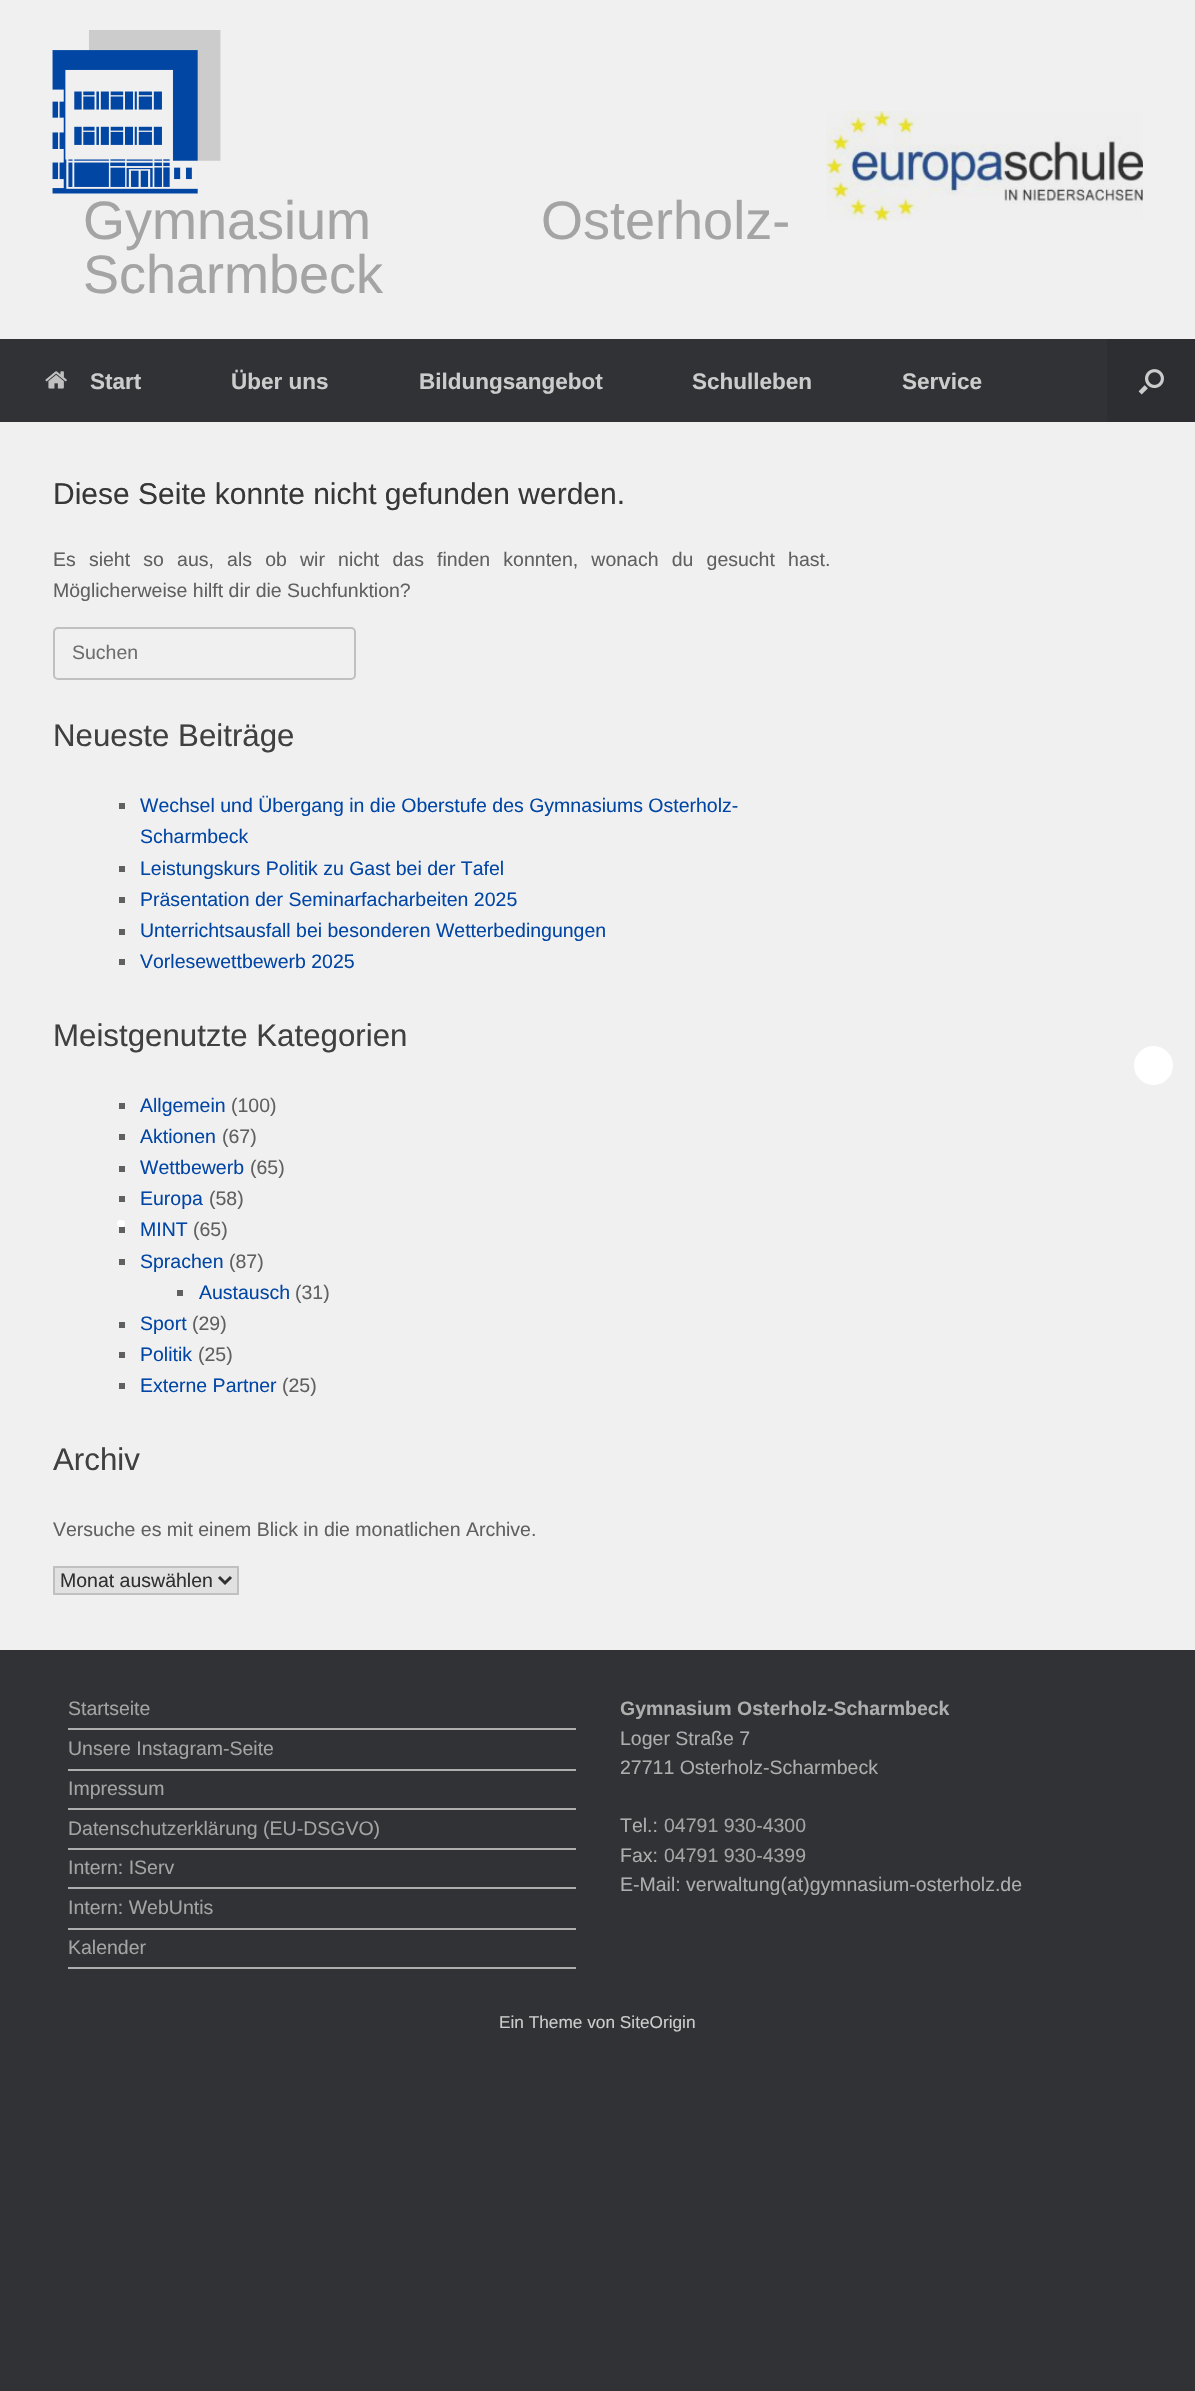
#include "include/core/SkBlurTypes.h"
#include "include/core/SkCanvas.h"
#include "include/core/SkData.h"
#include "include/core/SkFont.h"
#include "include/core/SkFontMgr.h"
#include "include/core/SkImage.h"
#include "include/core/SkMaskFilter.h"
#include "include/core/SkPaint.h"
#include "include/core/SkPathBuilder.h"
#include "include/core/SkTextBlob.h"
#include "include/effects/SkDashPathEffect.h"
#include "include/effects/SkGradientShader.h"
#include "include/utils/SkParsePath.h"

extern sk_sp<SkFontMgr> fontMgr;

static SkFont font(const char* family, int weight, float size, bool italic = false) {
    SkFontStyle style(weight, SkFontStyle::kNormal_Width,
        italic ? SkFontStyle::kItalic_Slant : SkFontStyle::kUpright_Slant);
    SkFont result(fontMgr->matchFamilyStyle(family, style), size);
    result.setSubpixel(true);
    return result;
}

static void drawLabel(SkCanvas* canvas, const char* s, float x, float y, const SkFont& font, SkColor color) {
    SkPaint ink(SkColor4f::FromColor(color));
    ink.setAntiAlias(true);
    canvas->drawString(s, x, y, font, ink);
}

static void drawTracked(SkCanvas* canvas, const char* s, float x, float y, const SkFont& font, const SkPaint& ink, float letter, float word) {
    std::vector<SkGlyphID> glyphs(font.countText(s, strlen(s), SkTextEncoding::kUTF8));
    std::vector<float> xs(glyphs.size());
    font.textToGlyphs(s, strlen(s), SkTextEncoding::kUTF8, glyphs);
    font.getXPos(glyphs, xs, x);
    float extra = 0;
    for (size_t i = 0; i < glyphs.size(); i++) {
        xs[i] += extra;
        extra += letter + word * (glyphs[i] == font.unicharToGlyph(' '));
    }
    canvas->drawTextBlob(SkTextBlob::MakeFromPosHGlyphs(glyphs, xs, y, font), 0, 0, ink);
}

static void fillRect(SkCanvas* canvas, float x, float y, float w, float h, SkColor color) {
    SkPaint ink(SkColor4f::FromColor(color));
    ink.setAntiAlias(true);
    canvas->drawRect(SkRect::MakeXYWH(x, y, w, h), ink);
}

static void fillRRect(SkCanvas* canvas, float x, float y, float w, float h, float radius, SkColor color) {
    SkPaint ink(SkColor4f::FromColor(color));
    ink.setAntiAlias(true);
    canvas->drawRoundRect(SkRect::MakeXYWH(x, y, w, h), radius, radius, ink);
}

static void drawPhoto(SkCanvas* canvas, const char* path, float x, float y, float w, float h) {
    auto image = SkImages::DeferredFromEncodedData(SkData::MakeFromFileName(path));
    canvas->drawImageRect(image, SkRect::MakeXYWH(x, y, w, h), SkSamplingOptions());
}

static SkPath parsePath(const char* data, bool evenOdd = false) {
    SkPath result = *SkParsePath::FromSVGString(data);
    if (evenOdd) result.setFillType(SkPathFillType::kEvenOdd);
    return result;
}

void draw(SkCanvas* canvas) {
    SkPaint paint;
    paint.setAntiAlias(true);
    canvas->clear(0xFF313235);
    fillRect(canvas, 0, 0, 1195, 339, 0xFFF0F0F0);
    drawPhoto(canvas, "assets/img1.png", 826, 111, 317, 110);
    drawPhoto(canvas, "assets/img2.png", 52, 30, 169, 164);
    SkFont font1 = font("Liberation Sans", 400, 54);
    paint.setColor(0xFFA4A4A4);
    drawTracked(canvas, "Gymnasium Osterholz-", 83, 239, font1, paint, 0, 155);
    drawLabel(canvas, "Scharmbeck", 83, 293, font1, 0xFFA4A4A4);
    drawPhoto(canvas, "assets/img3.png", 45, 371, 22, 18);
    SkFont font2 = font("Liberation Sans", 700, 22.5f);
    drawLabel(canvas, "Start", 90, 389, font2, 0xFFCCCCCC);
    drawLabel(canvas, "Über uns", 231, 389, font2, 0xFFCCCCCC);
    drawLabel(canvas, "Bildungsangebot", 419, 389, font2, 0xFFCCCCCC);
    drawLabel(canvas, "Schulleben", 692, 389, font2, 0xFFCCCCCC);
    drawLabel(canvas, "Service", 902, 389, font2, 0xFFCCCCCC);
    fillRect(canvas, 1107, 339, 88, 83, 0xFF2D2E31);
    drawPhoto(canvas, "assets/img4.png", 1138, 369, 26, 26);
    fillRect(canvas, 0, 422, 1195, 1228, 0xFFF0F0F0);
    SkFont font3 = font("Liberation Sans", 400, 30);
    drawLabel(canvas, "Diese Seite konnte nicht gefunden werden.", 53, 504, font3, 0xFF373737);
    SkFont font4 = font("Liberation Sans", 400, 19.5f);
    paint.setColor(0xFF606060);
    drawTracked(canvas, "Es sieht so aus, als ob wir nicht das finden konnten, wonach du gesucht hast.", 53, 566, font4, paint, 0, 7.75f);
    drawLabel(canvas, "Möglicherweise hilft dir die Suchfunktion?", 53, 597, font4, 0xFF606060);
    paint.setStroke(true);
    paint.setStrokeWidth(2);
    paint.setColor(0xFFC0C0C0);
    canvas->drawRoundRect(SkRect::MakeXYWH(54, 628, 301, 51), 4, 4, paint);
    drawLabel(canvas, "Suchen", 72, 659, font4, 0xFF6E6E6E);
    SkFont font5 = font("Liberation Sans", 400, 31.25f);
    drawLabel(canvas, "Neueste Beiträge", 53, 746, font5, 0xFF404040);
    fillRect(canvas, 119, 803, 6, 6, 0xFF606060);
    drawLabel(canvas, "Wechsel und Übergang in die Oberstufe des Gymnasiums Osterholz-", 140, 812, font4, 0xFF0246A5);
    drawLabel(canvas, "Scharmbeck", 140, 843, font4, 0xFF0246A5);
    fillRect(canvas, 119, 866, 6, 6, 0xFF606060);
    drawLabel(canvas, "Leistungskurs Politik zu Gast bei der Tafel", 140, 875, font4, 0xFF0246A5);
    fillRect(canvas, 119, 897, 6, 6, 0xFF606060);
    drawLabel(canvas, "Präsentation der Seminarfacharbeiten 2025", 140, 906, font4, 0xFF0246A5);
    fillRect(canvas, 119, 929, 6, 6, 0xFF606060);
    drawLabel(canvas, "Unterrichtsausfall bei besonderen Wetterbedingungen", 140, 937, font4, 0xFF0246A5);
    fillRect(canvas, 119, 959, 6, 6, 0xFF606060);
    drawLabel(canvas, "Vorlesewettbewerb 2025", 140, 968, font4, 0xFF0246A5);
    drawLabel(canvas, "Meistgenutzte Kategorien", 53, 1046, font5, 0xFF404040);
    fillRect(canvas, 119, 1103, 6, 6, 0xFF606060);
    drawLabel(canvas, "Allgemein", 140, 1112, font4, 0xFF0246A5);
    drawLabel(canvas, "(100)", 231, 1112, font4, 0xFF606060);
    fillRect(canvas, 119, 1134, 6, 6, 0xFF606060);
    drawLabel(canvas, "Aktionen", 140, 1143, font4, 0xFF0246A5);
    drawLabel(canvas, "(67)", 222, 1143, font4, 0xFF606060);
    fillRect(canvas, 119, 1166, 6, 6, 0xFF606060);
    drawLabel(canvas, "Wettbewerb", 140, 1174, font4, 0xFF0246A5);
    drawLabel(canvas, "(65)", 250, 1174, font4, 0xFF606060);
    fillRect(canvas, 119, 1196, 6, 6, 0xFF606060);
    drawLabel(canvas, "Europa", 140, 1205, font4, 0xFF0246A5);
    drawLabel(canvas, "(58)", 209, 1205, font4, 0xFF606060);
    fillRect(canvas, 119, 1227, 6, 6, 0xFF606060);
    drawLabel(canvas, "MINT", 140, 1236, font4, 0xFF0246A5);
    drawLabel(canvas, "(65)", 193, 1236, font4, 0xFF606060);
    fillRect(canvas, 119, 1259, 6, 6, 0xFF606060);
    drawLabel(canvas, "Sprachen", 140, 1268, font4, 0xFF0246A5);
    drawLabel(canvas, "(87)", 229, 1268, font4, 0xFF606060);
    fillRect(canvas, 177, 1290, 6, 6, 0xFF606060);
    drawLabel(canvas, "Austausch", 199, 1299, font4, 0xFF0246A5);
    drawLabel(canvas, "(31)", 295, 1299, font4, 0xFF606060);
    fillRect(canvas, 119, 1322, 6, 6, 0xFF606060);
    drawLabel(canvas, "Sport", 140, 1330, font4, 0xFF0246A5);
    drawLabel(canvas, "(29)", 192, 1330, font4, 0xFF606060);
    fillRect(canvas, 119, 1352, 6, 6, 0xFF606060);
    drawLabel(canvas, "Politik", 140, 1361, font4, 0xFF0246A5);
    drawLabel(canvas, "(25)", 198, 1361, font4, 0xFF606060);
    fillRect(canvas, 119, 1383, 6, 6, 0xFF606060);
    drawLabel(canvas, "Externe Partner", 140, 1392, font4, 0xFF0246A5);
    drawLabel(canvas, "(25)", 282, 1392, font4, 0xFF606060);
    drawLabel(canvas, "Archiv", 53, 1470, font5, 0xFF404040);
    drawLabel(canvas, "Versuche es mit einem Blick in die monatlichen Archive.", 53, 1536, font4, 0xFF606060);
    paint.setStroke(false);
    paint.setColor(0xFFE1E1E1);
    canvas->drawRect(SkRect::MakeXYWH(54, 1567, 184, 27), paint);
    paint.setStroke(true);
    paint.setColor(0xFFC0C0C0);
    canvas->drawRect(SkRect::MakeXYWH(54, 1567, 184, 27), paint);
    paint.setStrokeWidth(3);
    paint.setColor(0xFF303030);
    canvas->drawPath(parsePath("M219 1577L225 1583L231 1577"), paint);
    drawLabel(canvas, "Monat auswählen", 60, 1587, font4, 0xFF303030);
    fillRect(canvas, 68, 1728, 508, 2, 0xFFAEAEAE);
    drawLabel(canvas, "Startseite", 68, 1715, font4, 0xFFA4A4A4);
    fillRect(canvas, 68, 1769, 508, 2, 0xFFAEAEAE);
    drawLabel(canvas, "Unsere Instagram-Seite", 68, 1755, font4, 0xFFA4A4A4);
    fillRect(canvas, 68, 1808, 508, 2, 0xFFAEAEAE);
    drawLabel(canvas, "Impressum", 68, 1795, font4, 0xFFA4A4A4);
    fillRect(canvas, 68, 1848, 508, 2, 0xFFAEAEAE);
    drawLabel(canvas, "Datenschutzerklärung (EU-DSGVO)", 68, 1835, font4, 0xFFA4A4A4);
    fillRect(canvas, 68, 1887, 508, 2, 0xFFAEAEAE);
    drawLabel(canvas, "Intern: IServ", 68, 1874, font4, 0xFFA4A4A4);
    fillRect(canvas, 68, 1928, 508, 2, 0xFFAEAEAE);
    drawLabel(canvas, "Intern: WebUntis", 68, 1914, font4, 0xFFA4A4A4);
    fillRect(canvas, 68, 1967, 508, 2, 0xFFAEAEAE);
    drawLabel(canvas, "Kalender", 68, 1954, font4, 0xFFA4A4A4);
    SkFont font6 = font("Liberation Sans", 700, 19.5f);
    drawLabel(canvas, "Gymnasium Osterholz-Scharmbeck", 620, 1715, font6, 0xFFAEAEAE);
    drawLabel(canvas, "Loger Straße 7", 620, 1745, font4, 0xFFAEAEAE);
    drawLabel(canvas, "27711 Osterholz-Scharmbeck", 620, 1774, font4, 0xFFAEAEAE);
    drawLabel(canvas, "Tel.:", 620, 1832, font4, 0xFFAEAEAE);
    drawLabel(canvas, "04791 930-4300", 664, 1832, font4, 0xFFA4A4A4);
    drawLabel(canvas, "Fax:", 620, 1862, font4, 0xFFAEAEAE);
    drawLabel(canvas, "04791 930-4399", 664, 1862, font4, 0xFFA4A4A4);
    drawLabel(canvas, "E-Mail: verwaltung(at)gymnasium-osterholz.de", 620, 1891, font4, 0xFFAEAEAE);
    SkFont font7 = font("Liberation Sans", 400, 17.25f);
    drawLabel(canvas, "Ein Theme von SiteOrigin", 499, 2028, font7, 0xFFCCCCCC);
    paint.setStroke(false);
    paint.setColor(0xFFFFFFFF);
    canvas->drawCircle(1153.5f, 1065.5f, 18, paint);
    paint.setStroke(true);
    canvas->drawCircle(1153.5f, 1065.5f, 18, paint);
    fillRRect(canvas, 117, 1220, 8, 7, 3.5f, 0xFFFFFFFF);
}
